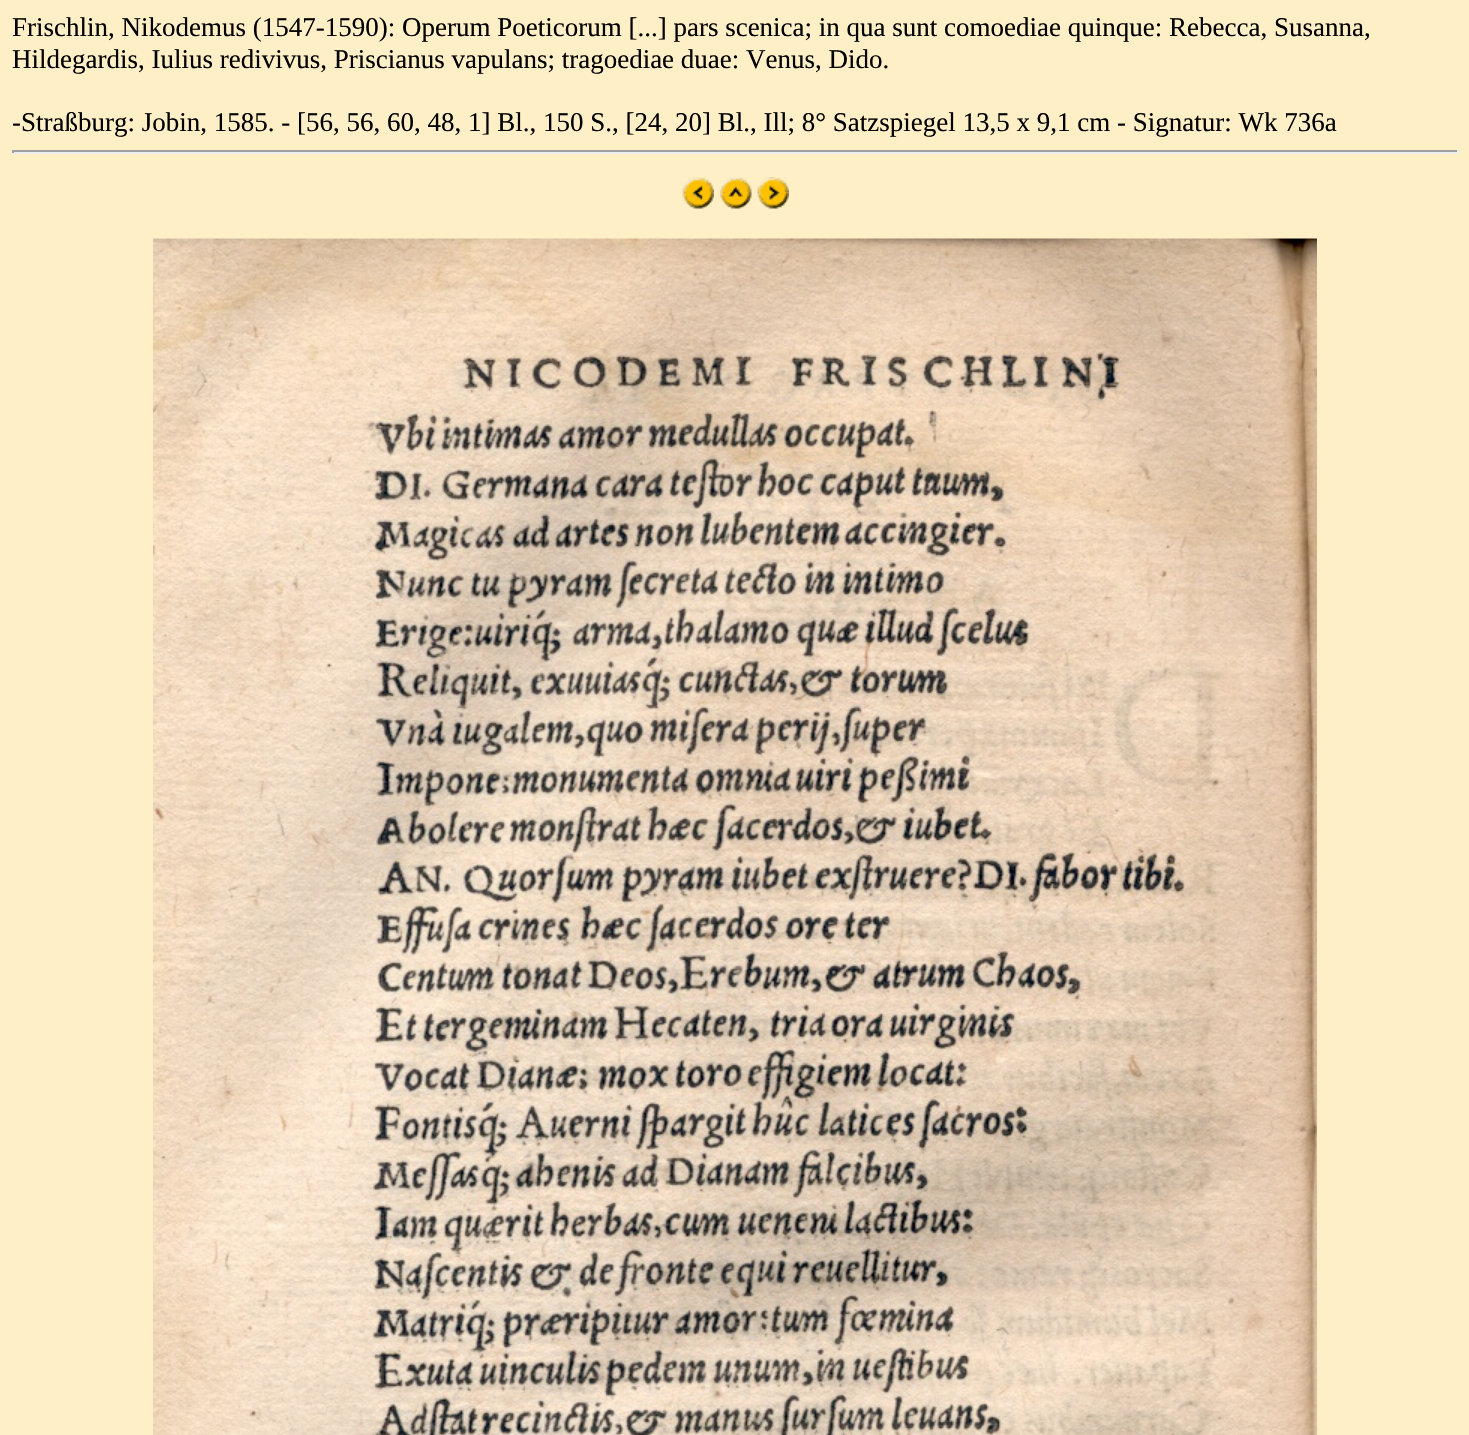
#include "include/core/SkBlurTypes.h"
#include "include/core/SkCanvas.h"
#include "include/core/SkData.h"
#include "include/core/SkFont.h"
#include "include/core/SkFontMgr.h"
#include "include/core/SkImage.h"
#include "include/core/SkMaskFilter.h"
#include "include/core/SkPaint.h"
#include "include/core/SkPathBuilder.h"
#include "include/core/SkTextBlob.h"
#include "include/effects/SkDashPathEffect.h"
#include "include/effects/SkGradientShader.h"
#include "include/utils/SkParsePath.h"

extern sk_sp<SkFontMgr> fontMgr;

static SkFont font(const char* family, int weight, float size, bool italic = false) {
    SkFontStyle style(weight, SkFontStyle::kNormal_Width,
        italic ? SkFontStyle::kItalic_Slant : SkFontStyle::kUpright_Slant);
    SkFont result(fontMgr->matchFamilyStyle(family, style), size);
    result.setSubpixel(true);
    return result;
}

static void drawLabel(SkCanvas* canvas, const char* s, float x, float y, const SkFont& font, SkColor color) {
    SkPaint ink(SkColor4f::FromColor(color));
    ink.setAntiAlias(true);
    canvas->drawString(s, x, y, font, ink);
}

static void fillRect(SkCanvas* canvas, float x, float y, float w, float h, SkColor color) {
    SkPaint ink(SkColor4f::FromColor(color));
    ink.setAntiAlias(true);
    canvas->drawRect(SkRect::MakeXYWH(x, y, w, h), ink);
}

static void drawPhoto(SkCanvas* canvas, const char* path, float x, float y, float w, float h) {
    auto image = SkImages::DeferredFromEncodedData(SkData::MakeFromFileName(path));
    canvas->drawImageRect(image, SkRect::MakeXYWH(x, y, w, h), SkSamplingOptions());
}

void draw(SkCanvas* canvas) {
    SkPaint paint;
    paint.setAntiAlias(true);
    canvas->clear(0xFFFFEFC6);
    SkFont font1 = font("Liberation Serif", 400, 27);
    drawLabel(canvas, "Frischlin, Nikodemus (1547-1590): Operum Poeticorum [...] pars scenica; in qua sunt comoediae quinque: Rebecca, Susanna,", 12, 36, font1, 0xFF000000);
    drawLabel(canvas, "Hildegardis, Iulius redivivus, Priscianus vapulans; tragoediae duae: Venus, Dido.", 12, 68, font1, 0xFF000000);
    drawLabel(canvas, "-Straßburg: Jobin, 1585. - [56, 56, 60, 48, 1] Bl., 150 S., [24, 20] Bl., Ill; 8° Satzspiegel 13,5 x 9,1 cm - Signatur: Wk 736a", 12, 131, font1, 0xFF000000);
    fillRect(canvas, 12, 150, 1446, 2, 0xFF9F9F9F);
    fillRect(canvas, 1457, 150, 2, 3, 0xFFEEEEEE);
    fillRect(canvas, 12, 152, 1446, 2, 0xFFEEEEEE);
    fillRect(canvas, 12, 150, 2, 3, 0xFF9F9F9F);
    drawPhoto(canvas, "assets/img1.png", 682, 177, 32, 32);
    drawPhoto(canvas, "assets/img2.png", 720, 177, 32, 32);
    drawPhoto(canvas, "assets/img3.png", 757, 177, 32, 32);
    drawPhoto(canvas, "assets/img4.png", 153, 238, 1164, 1197);
}
